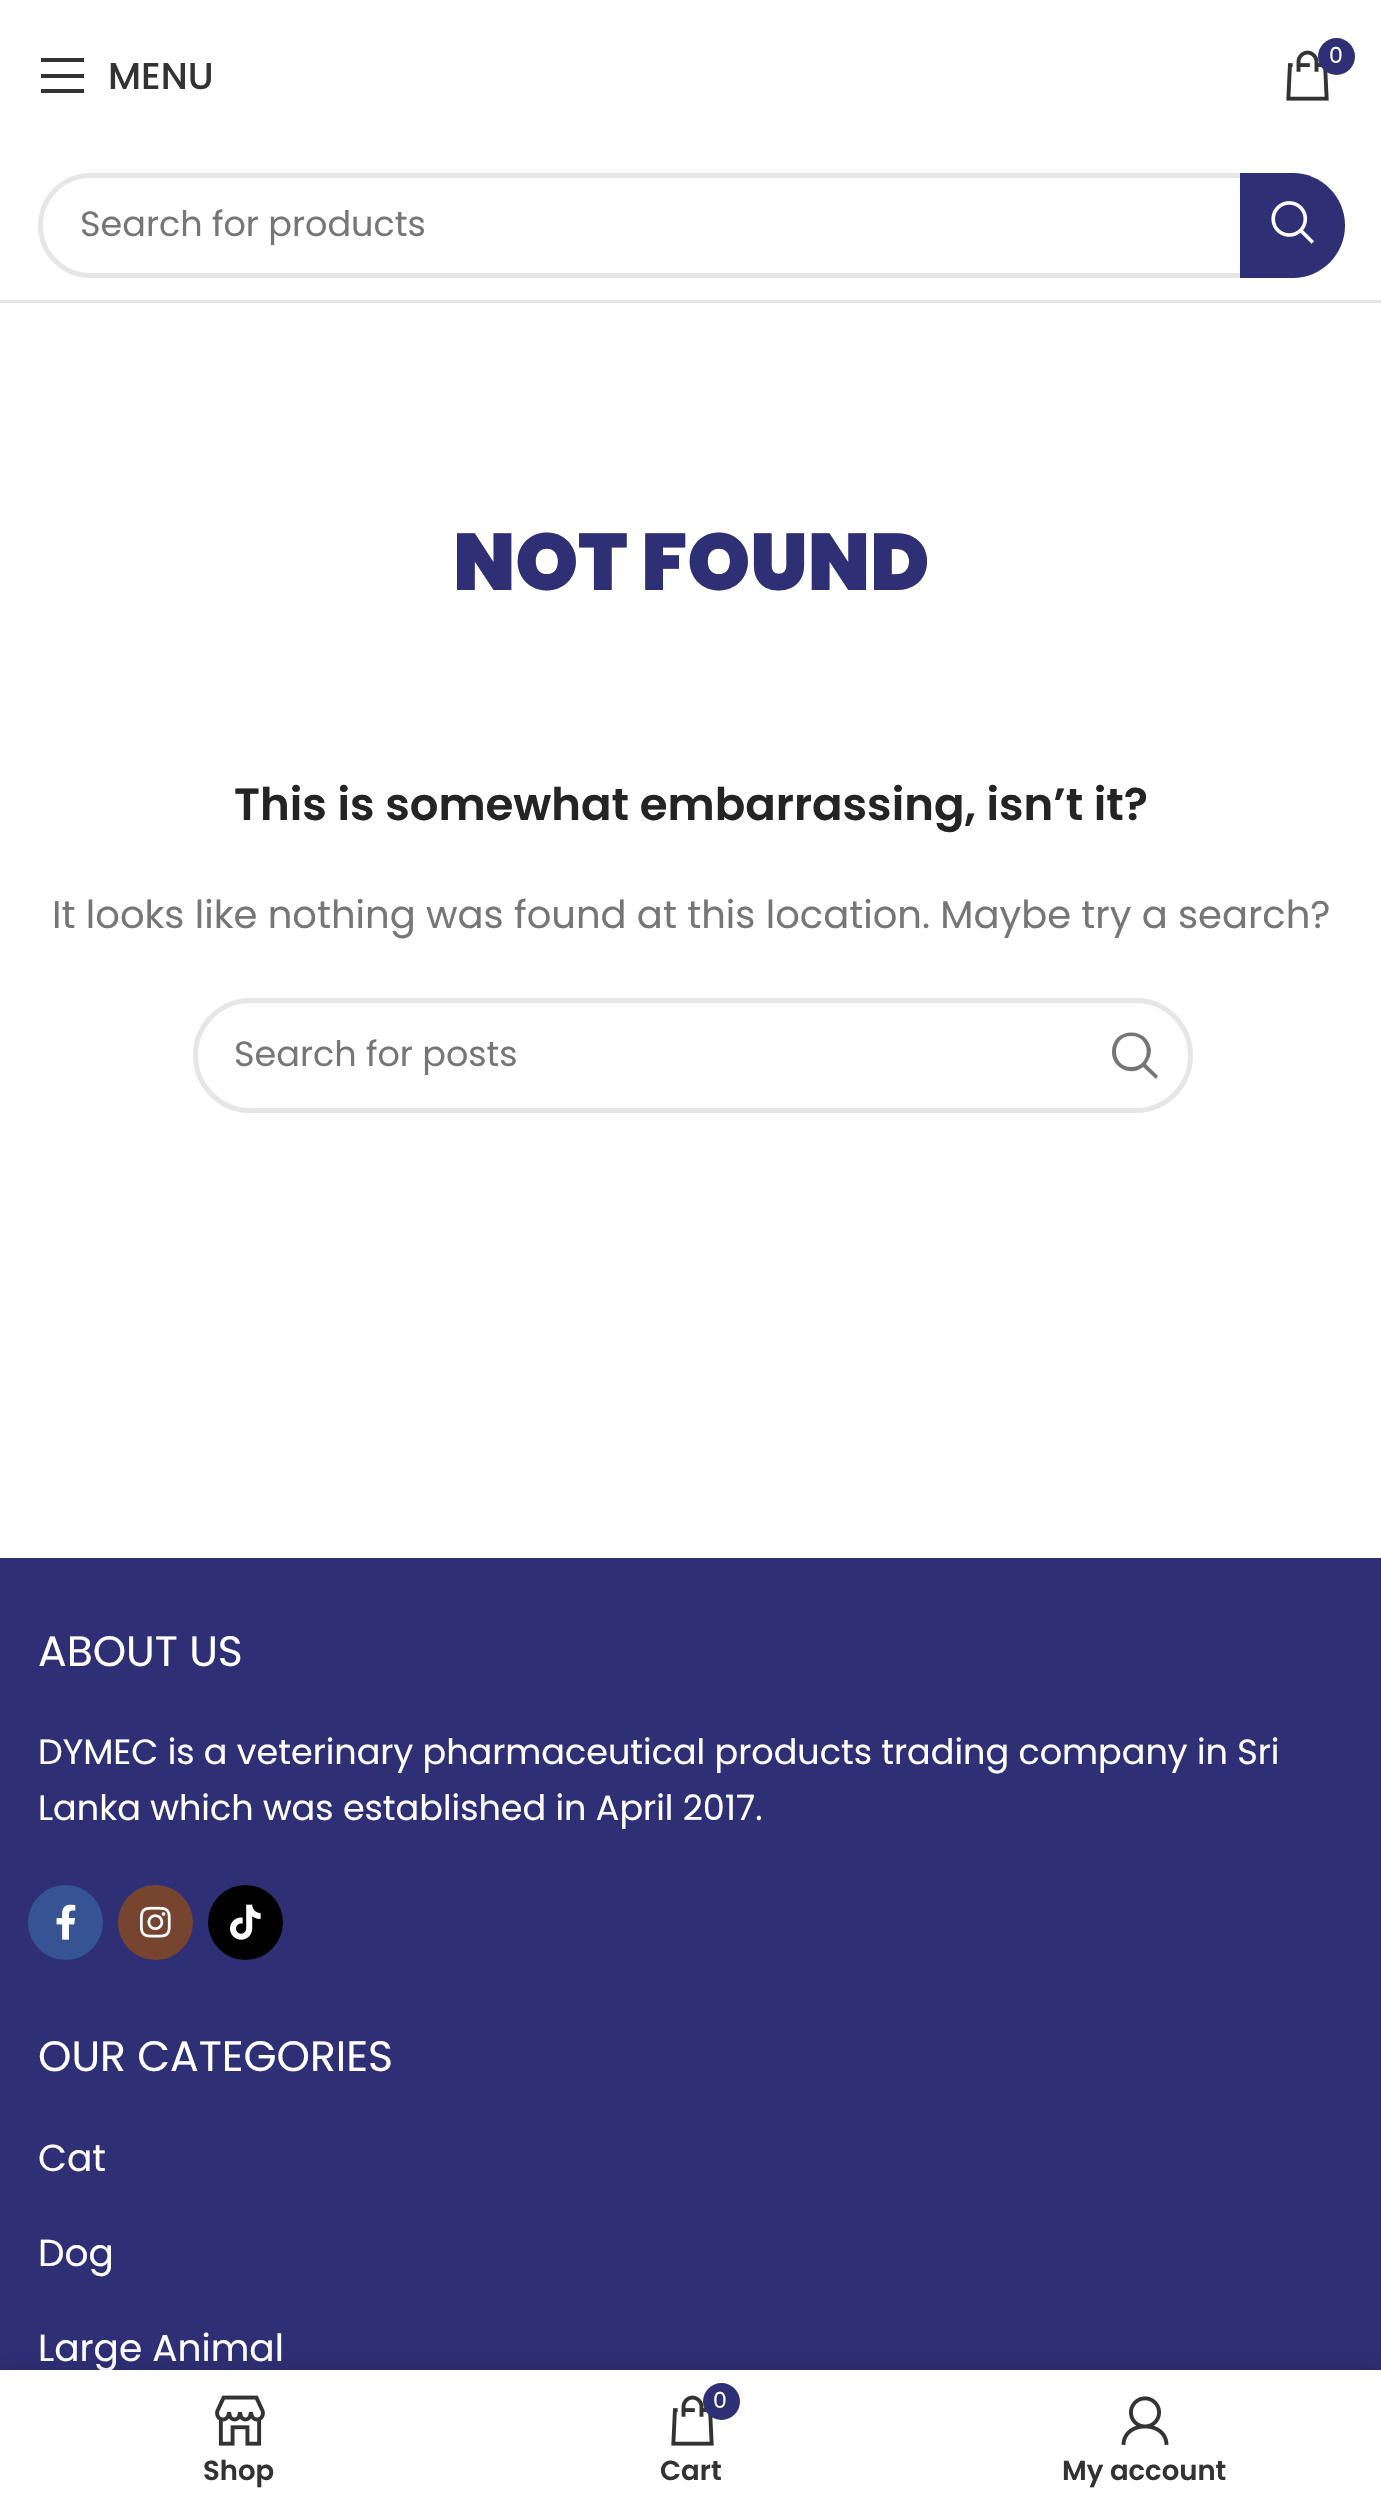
#include "include/core/SkBlurTypes.h"
#include "include/core/SkCanvas.h"
#include "include/core/SkData.h"
#include "include/core/SkFont.h"
#include "include/core/SkFontMgr.h"
#include "include/core/SkImage.h"
#include "include/core/SkMaskFilter.h"
#include "include/core/SkPaint.h"
#include "include/core/SkPathBuilder.h"
#include "include/core/SkTextBlob.h"
#include "include/effects/SkDashPathEffect.h"
#include "include/effects/SkGradientShader.h"
#include "include/utils/SkParsePath.h"

extern sk_sp<SkFontMgr> fontMgr;

static SkFont font(const char* family, int weight, float size, bool italic = false) {
    SkFontStyle style(weight, SkFontStyle::kNormal_Width,
        italic ? SkFontStyle::kItalic_Slant : SkFontStyle::kUpright_Slant);
    SkFont result(fontMgr->matchFamilyStyle(family, style), size);
    result.setSubpixel(true);
    return result;
}

static void drawLabel(SkCanvas* canvas, const char* s, float x, float y, const SkFont& font, SkColor color) {
    SkPaint ink(SkColor4f::FromColor(color));
    ink.setAntiAlias(true);
    canvas->drawString(s, x, y, font, ink);
}

static void fillRect(SkCanvas* canvas, float x, float y, float w, float h, SkColor color) {
    SkPaint ink(SkColor4f::FromColor(color));
    ink.setAntiAlias(true);
    canvas->drawRect(SkRect::MakeXYWH(x, y, w, h), ink);
}

static void drawPhoto(SkCanvas* canvas, const char* path, float x, float y, float w, float h) {
    auto image = SkImages::DeferredFromEncodedData(SkData::MakeFromFileName(path));
    canvas->drawImageRect(image, SkRect::MakeXYWH(x, y, w, h), SkSamplingOptions());
}

static SkPath parsePath(const char* data, bool evenOdd = false) {
    SkPath result = *SkParsePath::FromSVGString(data);
    if (evenOdd) result.setFillType(SkPathFillType::kEvenOdd);
    return result;
}

void draw(SkCanvas* canvas) {
    SkPaint paint;
    paint.setAntiAlias(true);
    canvas->clear(0xFFFFFFFF);
    drawPhoto(canvas, "assets/img1.png", 1286, 50, 43, 51);
    paint.setColor(0xFF2E2F75);
    canvas->drawCircle(1336.5f, 56.5f, 18.5f, paint);
    SkFont font1 = font("Poppins", 400, 22);
    drawLabel(canvas, "0", 1329, 63, font1, 0xFFFFFFFF);
    paint.setColor(0xFF333333);
    canvas->drawPath(parsePath("M41 62H84V58H41ZM41 78H84V74H41ZM41 93H84V89H41Z"), paint);
    SkFont font2 = font("Poppins", 500, 37.5f);
    drawLabel(canvas, "MENU", 108, 89, font2, 0xFF333333);
    fillRect(canvas, 0, 300, 1381, 3, 0xFFE6E6E6);
    paint.setStroke(true);
    paint.setStrokeWidth(5);
    paint.setColor(0xFFE6E6E6);
    canvas->drawRoundRect(SkRect::MakeXYWH(40.5f, 175.5f, 1302, 100), 50, 50, paint);
    SkFont font3 = font("Poppins", 400, 35);
    drawLabel(canvas, "Search for products", 80, 236, font3, 0xFF767676);
    paint.setStroke(false);
    paint.setColor(0xFF2E2F75);
    canvas->drawPath(parsePath("M1240 173H1292.5C1321.5 173 1345 196.5 1345 225.5C1345 254.5 1321.5 278 1292.5 278H1240Z"), paint);
    drawPhoto(canvas, "assets/img2.png", 1271, 201, 43, 43);
    SkFont font4 = font("Poppins", 900, 80);
    drawLabel(canvas, "NOT FOUND", 453, 590, font4, 0xFF2E2F75);
    SkFont font5 = font("Poppins", 600, 45);
    drawLabel(canvas, "This is somewhat embarrassing, isn’t it?", 234, 820, font5, 0xFF242424);
    SkFont font6 = font("Poppins", 400, 38.5f);
    drawLabel(canvas, "It looks like nothing was found at this location. Maybe try a search?", 52, 928, font6, 0xFF767676);
    paint.setStroke(true);
    paint.setColor(0xFFE6E6E6);
    canvas->drawRoundRect(SkRect::MakeXYWH(195.5f, 1000.5f, 995, 110), 55, 55, paint);
    drawLabel(canvas, "Search for posts", 234, 1066, font3, 0xFF767676);
    paint.setStroke(false);
    paint.setColor(0xFF767676);
    canvas->drawPath(parsePath("M1112 1052C1112 1068 1131 1077 1143 1067L1156 1079L1158 1076L1146 1064C1149 1060 1151 1055 1151 1050C1148 1026 1112 1027 1112 1052ZM1131 1067C1111 1067 1111 1036 1131 1036C1152 1036 1152 1067 1131 1067Z"), paint);
    fillRect(canvas, 0, 1558, 1381, 812, 0xFF2E2F75);
    SkFont font7 = font("Poppins", 400, 42.5f);
    drawLabel(canvas, "ABOUT US", 38, 1666, font7, 0xFFFFFFFF);
    drawLabel(canvas, "DYMEC is a veterinary pharmaceutical products trading company in Sri", 38, 1764, font3, 0xFFFFFFFF);
    drawLabel(canvas, "Lanka which was established in April 2017.", 38, 1820, font3, 0xFFFFFFFF);
    paint.setColor(0xFF365493);
    canvas->drawCircle(65.5f, 1922.5f, 37.5f, paint);
    drawPhoto(canvas, "assets/img3.png", 56, 1904, 20, 36);
    paint.setColor(0xFF774430);
    canvas->drawCircle(155.5f, 1922.5f, 37.5f, paint);
    drawPhoto(canvas, "assets/img4.png", 140, 1906, 31, 32);
    paint.setColor(0xFF010101);
    canvas->drawCircle(245.5f, 1922.5f, 37.5f, paint);
    drawPhoto(canvas, "assets/img5.png", 230, 1904, 31, 36);
    drawLabel(canvas, "OUR CATEGORIES", 38, 2071, font7, 0xFFFFFFFF);
    SkFont font8 = font("Poppins", 400, 37.5f);
    drawLabel(canvas, "Cat", 38, 2171, font8, 0xFFFFFFFF);
    drawLabel(canvas, "Dog", 38, 2266, font8, 0xFFFFFFFF);
    drawLabel(canvas, "Large Animal", 38, 2361, font8, 0xFFFFFFFF);
    paint.setColor(0x1F000000);
    paint.setMaskFilter(SkMaskFilter::MakeBlur(kNormal_SkBlurStyle, 11));
    canvas->drawRect(SkRect::MakeXYWH(0, 2370, 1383, 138), paint);
    paint.setMaskFilter(nullptr);
    fillRect(canvas, 0, 2370, 1381, 137, 0xFFFFFFFF);
    drawPhoto(canvas, "assets/img6.png", 215, 2395, 50, 51);
    SkFont font9 = font("Poppins", 600, 27.5f);
    drawLabel(canvas, "Shop", 203, 2480, font9, 0xFF333333);
    drawPhoto(canvas, "assets/img1.png", 671, 2395, 43, 51);
    paint.setColor(0xFF2E2F75);
    canvas->drawCircle(721.5f, 2401.5f, 18.5f, paint);
    drawLabel(canvas, "0", 713, 2408, font1, 0xFFFFFFFF);
    drawLabel(canvas, "Cart", 660, 2480, font9, 0xFF333333);
    drawPhoto(canvas, "assets/img7.png", 1121, 2396, 48, 49);
    drawLabel(canvas, "My account", 1062, 2480, font9, 0xFF333333);
}
